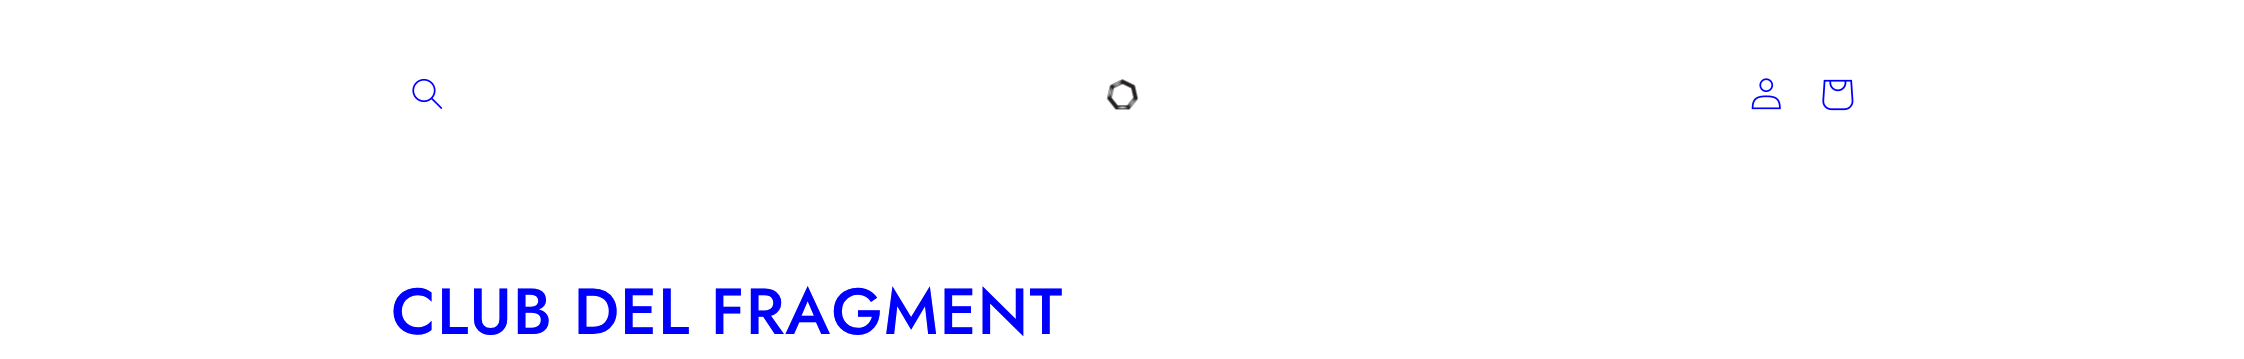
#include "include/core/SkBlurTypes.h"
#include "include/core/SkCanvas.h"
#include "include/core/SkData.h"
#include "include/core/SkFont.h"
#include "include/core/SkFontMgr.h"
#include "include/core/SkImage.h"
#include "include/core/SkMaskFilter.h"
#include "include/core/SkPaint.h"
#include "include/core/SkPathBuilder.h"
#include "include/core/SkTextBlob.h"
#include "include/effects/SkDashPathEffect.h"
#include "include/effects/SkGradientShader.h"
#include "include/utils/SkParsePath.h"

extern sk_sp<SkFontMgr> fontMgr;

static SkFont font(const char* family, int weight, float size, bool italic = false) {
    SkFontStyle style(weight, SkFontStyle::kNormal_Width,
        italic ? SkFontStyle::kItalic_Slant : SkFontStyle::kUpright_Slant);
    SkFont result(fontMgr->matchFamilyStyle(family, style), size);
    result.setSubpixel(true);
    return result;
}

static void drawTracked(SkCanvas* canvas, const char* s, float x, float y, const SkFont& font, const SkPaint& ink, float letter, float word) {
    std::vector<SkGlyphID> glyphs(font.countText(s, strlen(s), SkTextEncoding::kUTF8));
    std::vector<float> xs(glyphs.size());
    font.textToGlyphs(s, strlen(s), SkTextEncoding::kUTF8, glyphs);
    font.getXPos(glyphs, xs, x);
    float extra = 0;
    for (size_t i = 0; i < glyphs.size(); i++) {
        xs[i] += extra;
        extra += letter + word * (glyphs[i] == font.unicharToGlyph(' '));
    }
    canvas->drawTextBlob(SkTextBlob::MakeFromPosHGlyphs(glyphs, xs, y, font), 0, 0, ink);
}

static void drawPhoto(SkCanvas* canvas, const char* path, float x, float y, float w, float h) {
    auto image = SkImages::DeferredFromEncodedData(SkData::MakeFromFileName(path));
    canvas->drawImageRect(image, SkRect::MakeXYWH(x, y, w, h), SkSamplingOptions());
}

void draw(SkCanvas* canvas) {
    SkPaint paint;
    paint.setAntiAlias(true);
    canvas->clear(0xFFFFFFFF);
    drawPhoto(canvas, "assets/img1.png", 412, 78, 31, 31);
    drawPhoto(canvas, "assets/img2.png", 1106, 79, 33, 31);
    drawPhoto(canvas, "assets/img3.png", 1751, 78, 30, 32);
    drawPhoto(canvas, "assets/img4.png", 1822, 79, 32, 32);
    SkFont font1 = font("Jost", 500, 65);
    paint.setColor(0xFF0000FF);
    drawTracked(canvas, "CLUB DEL FRAGMENT", 391, 334, font1, paint, 1, 0);
}
